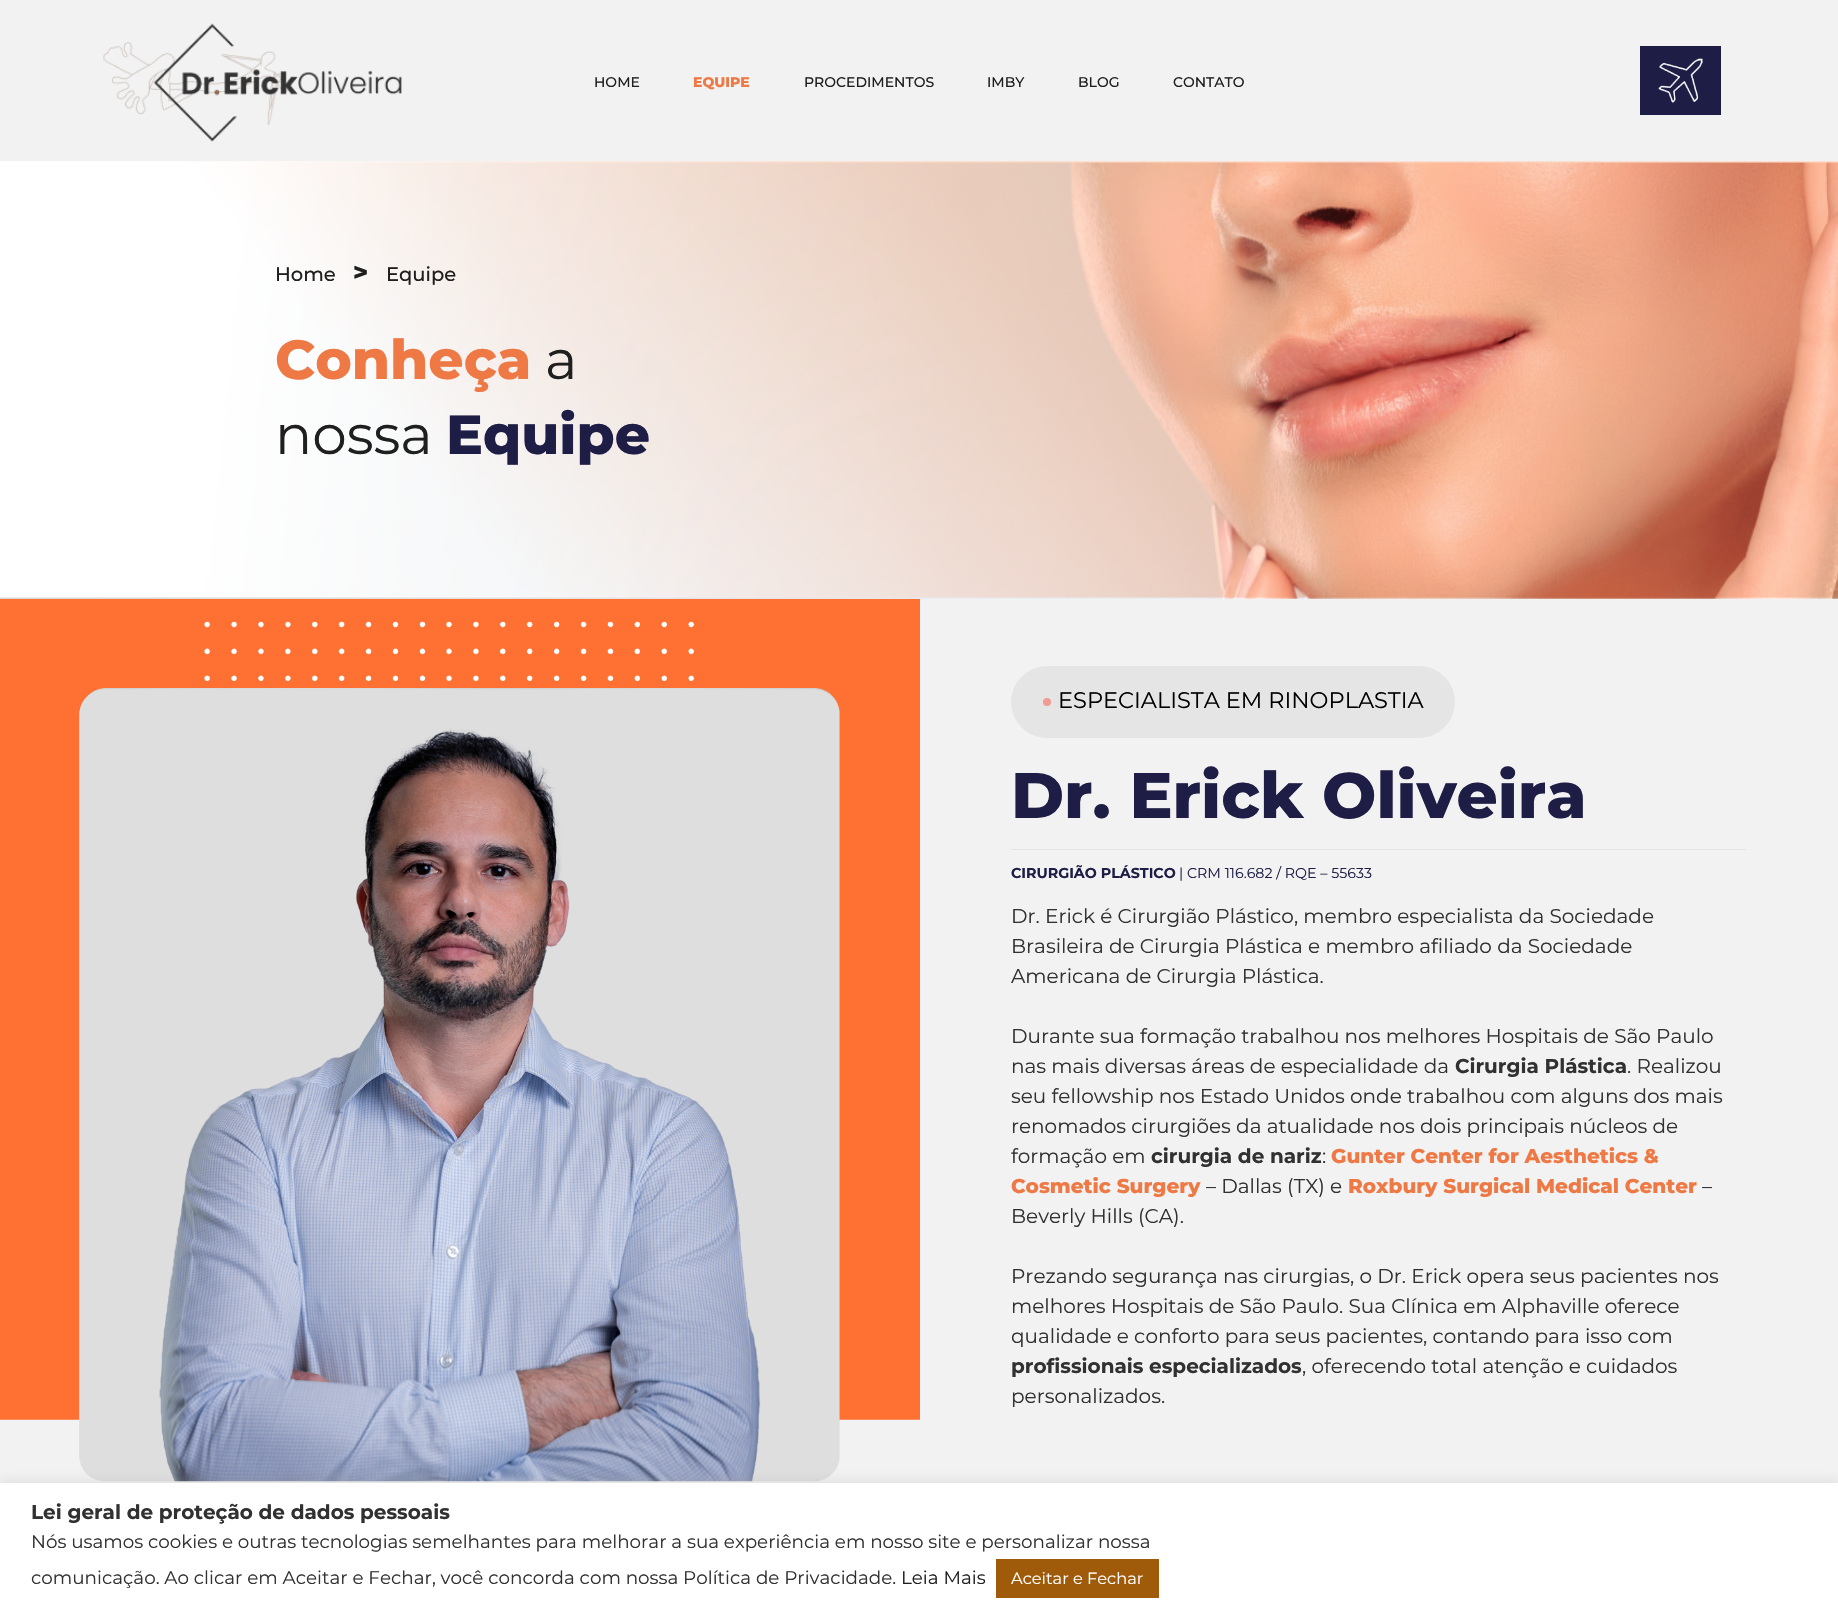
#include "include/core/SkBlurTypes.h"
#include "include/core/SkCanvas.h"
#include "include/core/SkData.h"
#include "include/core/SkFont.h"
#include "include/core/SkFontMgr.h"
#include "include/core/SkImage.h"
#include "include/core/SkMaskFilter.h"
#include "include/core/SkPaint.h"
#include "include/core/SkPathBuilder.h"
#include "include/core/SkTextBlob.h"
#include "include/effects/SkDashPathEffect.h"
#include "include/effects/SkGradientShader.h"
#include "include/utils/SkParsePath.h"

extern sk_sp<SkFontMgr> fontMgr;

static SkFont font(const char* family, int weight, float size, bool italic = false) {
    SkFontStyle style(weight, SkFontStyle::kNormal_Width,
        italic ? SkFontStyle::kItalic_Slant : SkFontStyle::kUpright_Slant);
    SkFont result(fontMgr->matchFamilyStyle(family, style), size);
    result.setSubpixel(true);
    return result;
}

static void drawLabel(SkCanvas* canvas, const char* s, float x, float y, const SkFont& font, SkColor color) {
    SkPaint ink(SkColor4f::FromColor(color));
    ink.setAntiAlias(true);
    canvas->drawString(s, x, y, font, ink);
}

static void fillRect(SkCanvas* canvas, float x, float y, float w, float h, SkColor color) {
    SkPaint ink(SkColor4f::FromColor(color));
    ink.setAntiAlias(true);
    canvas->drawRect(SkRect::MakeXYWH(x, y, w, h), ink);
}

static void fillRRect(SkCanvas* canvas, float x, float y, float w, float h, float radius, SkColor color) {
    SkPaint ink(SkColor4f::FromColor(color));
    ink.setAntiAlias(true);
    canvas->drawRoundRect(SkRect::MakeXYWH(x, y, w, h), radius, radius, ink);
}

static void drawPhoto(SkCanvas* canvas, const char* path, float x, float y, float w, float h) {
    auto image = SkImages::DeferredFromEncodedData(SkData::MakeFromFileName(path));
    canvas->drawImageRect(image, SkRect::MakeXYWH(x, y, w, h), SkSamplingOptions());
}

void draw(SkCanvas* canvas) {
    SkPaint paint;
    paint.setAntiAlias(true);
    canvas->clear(0xFFF2F2F2);
    drawPhoto(canvas, "assets/img1.png", 103, 23, 299, 119);
    SkFont font1 = font("Montserrat", 500, 14);
    drawLabel(canvas, "HOME", 594, 87, font1, 0xFF1F1F1F);
    SkFont font2 = font("Montserrat", 800, 14);
    drawLabel(canvas, "EQUIPE", 693, 87, font2, 0xFFEE7945);
    drawLabel(canvas, "PROCEDIMENTOS", 804, 87, font1, 0xFF1F1F1F);
    drawLabel(canvas, "IMBY", 987, 87, font1, 0xFF1F1F1F);
    drawLabel(canvas, "BLOG", 1078, 87, font1, 0xFF1F1F1F);
    drawLabel(canvas, "CONTATO", 1173, 87, font1, 0xFF1F1F1F);
    fillRect(canvas, 1640, 46, 81, 69, 0xFF1D1D45);
    drawPhoto(canvas, "assets/img2.png", 1658, 58, 45, 45);
    drawPhoto(canvas, "assets/img4.png", 0, 598, 920, 884);
    drawPhoto(canvas, "assets/img3.png", 0, 161, 1838, 438);
    SkFont font3 = font("Montserrat", 500, 19.5f);
    drawLabel(canvas, "Home", 275, 281, font3, 0xFF1F1F1F);
    SkFont font4 = font("Montserrat", 800, 25);
    drawLabel(canvas, ">", 353, 281, font4, 0xFF1F1F1F);
    drawLabel(canvas, "Equipe", 386, 281, font3, 0xFF1F1F1F);
    SkFont font5 = font("Montserrat", 800, 55);
    drawLabel(canvas, "Conheça", 275, 379, font5, 0xFFEE7945);
    SkFont font6 = font("Montserrat", 400, 55);
    drawLabel(canvas, "a", 545, 379, font6, 0xFF1F1F1F);
    drawLabel(canvas, "nossa", 275, 454, font6, 0xFF1F1F1F);
    drawLabel(canvas, "Equipe", 446, 454, font5, 0xFF1D1D45);
    fillRRect(canvas, 1011, 666, 444, 72, 36, 0xFFE5E5E5);
    paint.setColor(0xFFF29B90);
    canvas->drawCircle(1047, 702, 4, paint);
    SkFont font7 = font("Montserrat", 400, 22.5f);
    drawLabel(canvas, "ESPECIALISTA EM RINOPLASTIA", 1058, 708, font7, 0xFF000000);
    fillRect(canvas, 1011, 849, 735, 1, 0xFFE5E5E5);
    SkFont font8 = font("Montserrat", 800, 64.25f);
    drawLabel(canvas, "Dr. Erick Oliveira", 1011, 818, font8, 0xFF1D1D45);
    SkFont font9 = font("Montserrat", 700, 14.25f);
    drawLabel(canvas, "CIRURGIÃO PLÁSTICO", 1011, 878, font9, 0xFF1D1D45);
    SkFont font10 = font("Montserrat", 400, 14.25f);
    drawLabel(canvas, "| CRM 116.682 / RQE – 55633", 1179, 878, font10, 0xFF1D1D45);
    SkFont font11 = font("Montserrat", 400, 20);
    drawLabel(canvas, "Dr. Erick é Cirurgião Plástico, membro especialista da Sociedade", 1011, 923, font11, 0xFF313131);
    drawLabel(canvas, "Brasileira de Cirurgia Plástica e membro afiliado da Sociedade", 1011, 953, font11, 0xFF313131);
    drawLabel(canvas, "Americana de Cirurgia Plástica.", 1011, 983, font11, 0xFF313131);
    drawLabel(canvas, "Durante sua formação trabalhou nos melhores Hospitais de São Paulo", 1011, 1043, font11, 0xFF313131);
    drawLabel(canvas, "nas mais diversas áreas de especialidade da", 1011, 1073, font11, 0xFF313131);
    SkFont font12 = font("Montserrat", 700, 20);
    drawLabel(canvas, "Cirurgia Plástica", 1455, 1073, font12, 0xFF313131);
    drawLabel(canvas, ". Realizou", 1627, 1073, font11, 0xFF313131);
    drawLabel(canvas, "seu fellowship nos Estado Unidos onde trabalhou com alguns dos mais", 1011, 1103, font11, 0xFF313131);
    drawLabel(canvas, "renomados cirurgiões da atualidade nos dois principais núcleos de", 1011, 1133, font11, 0xFF313131);
    drawLabel(canvas, "formação em", 1011, 1163, font11, 0xFF313131);
    drawLabel(canvas, "cirurgia de nariz", 1151, 1163, font12, 0xFF313131);
    drawLabel(canvas, ":", 1322, 1163, font11, 0xFF313131);
    SkFont font13 = font("Montserrat", 800, 20);
    drawLabel(canvas, "Gunter Center for Aesthetics &", 1331, 1163, font13, 0xFFEE7945);
    drawLabel(canvas, "Cosmetic Surgery", 1011, 1193, font13, 0xFFEE7945);
    drawLabel(canvas, "– Dallas (TX) e", 1206, 1193, font11, 0xFF313131);
    drawLabel(canvas, "Roxbury Surgical Medical Center", 1348, 1193, font13, 0xFFEE7945);
    drawLabel(canvas, "–", 1702, 1193, font11, 0xFF313131);
    drawLabel(canvas, "Beverly Hills (CA).", 1011, 1223, font11, 0xFF313131);
    drawLabel(canvas, "Prezando segurança nas cirurgias, o Dr. Erick opera seus pacientes nos", 1011, 1283, font11, 0xFF313131);
    drawLabel(canvas, "melhores Hospitais de São Paulo. Sua Clínica em Alphaville oferece", 1011, 1313, font11, 0xFF313131);
    drawLabel(canvas, "qualidade e conforto para seus pacientes, contando para isso com", 1011, 1343, font11, 0xFF313131);
    drawLabel(canvas, "profissionais especializados", 1011, 1373, font12, 0xFF313131);
    drawLabel(canvas, ", oferecendo total atenção e cuidados", 1302, 1373, font11, 0xFF313131);
    drawLabel(canvas, "personalizados.", 1011, 1403, font11, 0xFF313131);
    paint.setColor(0x4DACABAB);
    paint.setMaskFilter(SkMaskFilter::MakeBlur(kNormal_SkBlurStyle, 6));
    canvas->drawRect(SkRect::MakeXYWH(0, 1481, 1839, 133), paint);
    paint.setMaskFilter(nullptr);
    fillRect(canvas, 0, 1483, 1838, 132, 0xFFFFFFFF);
    drawLabel(canvas, "Lei geral de proteção de dados pessoais", 31, 1519, font12, 0xFF313131);
    SkFont font14 = font("Montserrat", 400, 18.33f);
    drawLabel(canvas, "Nós usamos cookies e outras tecnologias semelhantes para melhorar a sua experiência em nosso site e personalizar nossa", 31, 1548, font14, 0xFF313131);
    drawLabel(canvas, "comunicação. Ao clicar em Aceitar e Fechar, você concorda com nossa Política de Privacidade.", 31, 1584, font14, 0xFF313131);
    drawLabel(canvas, "Leia Mais", 901, 1584, font14, 0xFF1F1F1F);
    fillRect(canvas, 996, 1559, 163, 39, 0xFF9F5B09);
    SkFont font15 = font("Montserrat", 400, 16.25f);
    drawLabel(canvas, "Aceitar e Fechar", 1011, 1584, font15, 0xFFFFFFFF);
}
